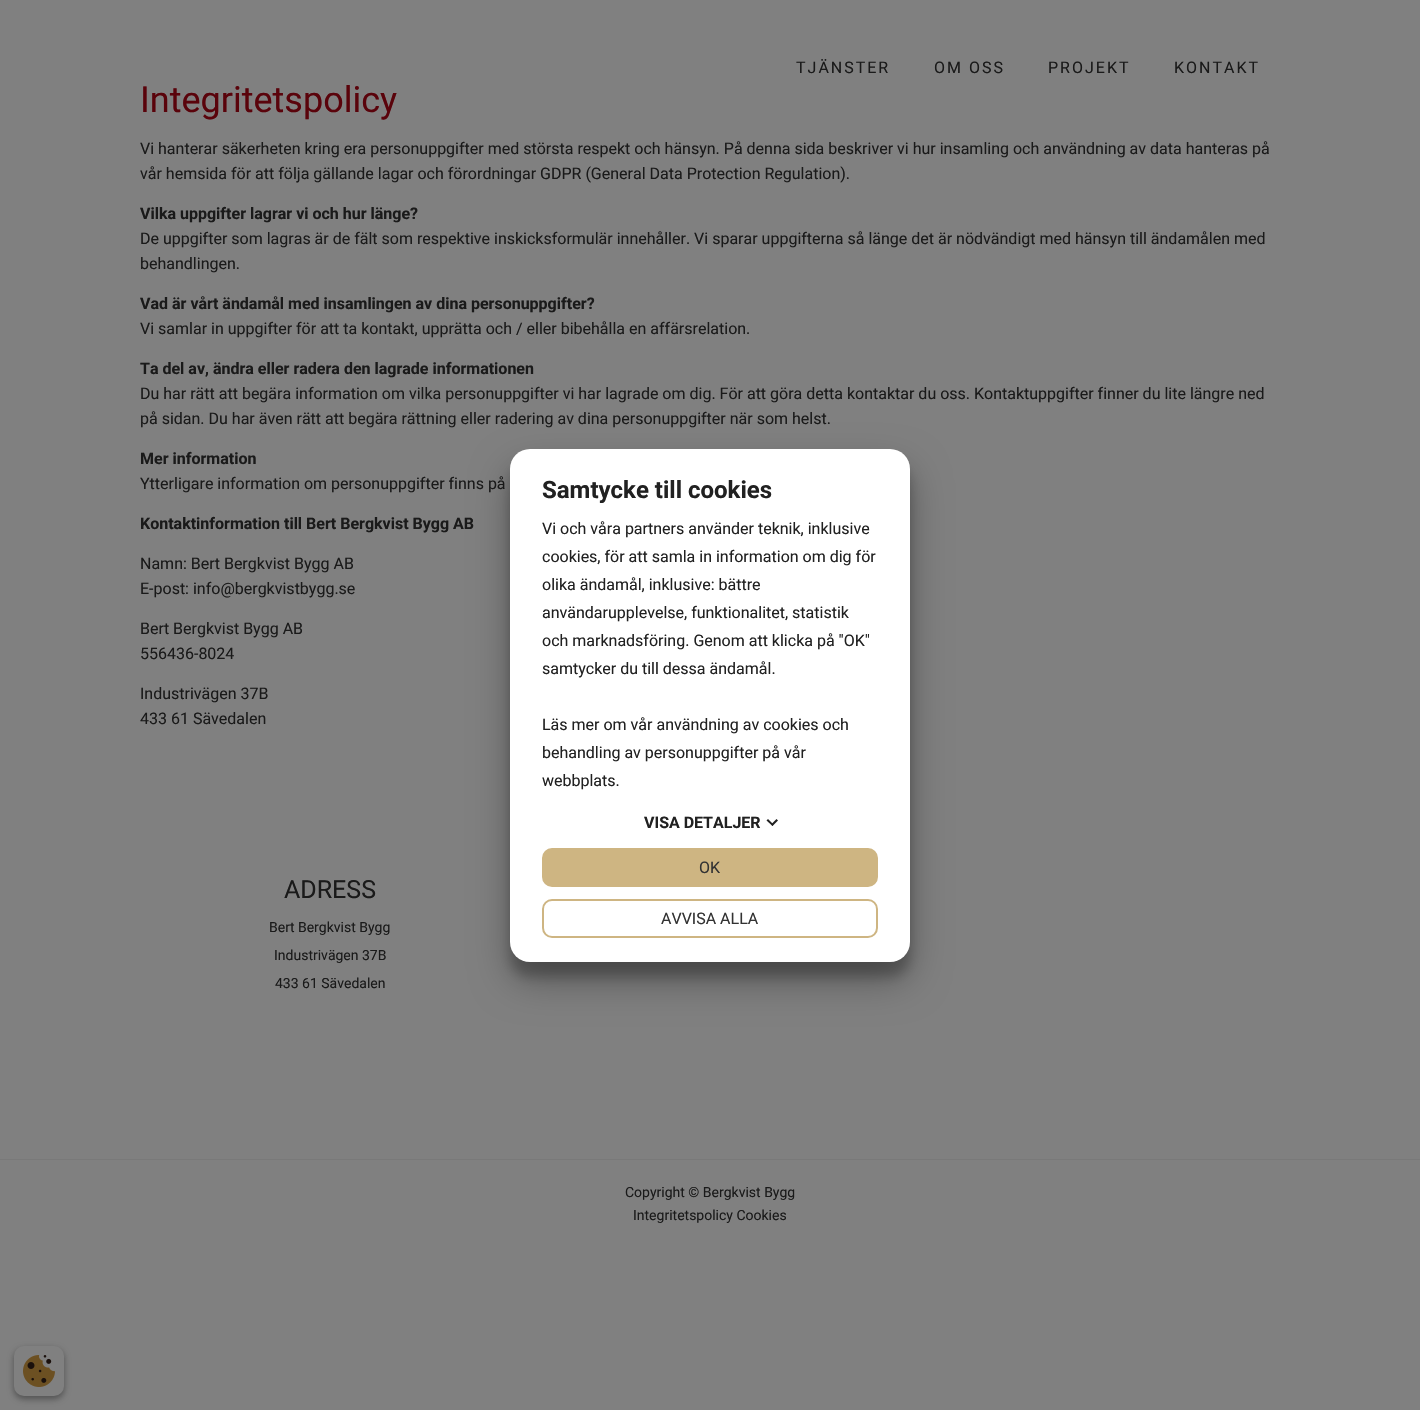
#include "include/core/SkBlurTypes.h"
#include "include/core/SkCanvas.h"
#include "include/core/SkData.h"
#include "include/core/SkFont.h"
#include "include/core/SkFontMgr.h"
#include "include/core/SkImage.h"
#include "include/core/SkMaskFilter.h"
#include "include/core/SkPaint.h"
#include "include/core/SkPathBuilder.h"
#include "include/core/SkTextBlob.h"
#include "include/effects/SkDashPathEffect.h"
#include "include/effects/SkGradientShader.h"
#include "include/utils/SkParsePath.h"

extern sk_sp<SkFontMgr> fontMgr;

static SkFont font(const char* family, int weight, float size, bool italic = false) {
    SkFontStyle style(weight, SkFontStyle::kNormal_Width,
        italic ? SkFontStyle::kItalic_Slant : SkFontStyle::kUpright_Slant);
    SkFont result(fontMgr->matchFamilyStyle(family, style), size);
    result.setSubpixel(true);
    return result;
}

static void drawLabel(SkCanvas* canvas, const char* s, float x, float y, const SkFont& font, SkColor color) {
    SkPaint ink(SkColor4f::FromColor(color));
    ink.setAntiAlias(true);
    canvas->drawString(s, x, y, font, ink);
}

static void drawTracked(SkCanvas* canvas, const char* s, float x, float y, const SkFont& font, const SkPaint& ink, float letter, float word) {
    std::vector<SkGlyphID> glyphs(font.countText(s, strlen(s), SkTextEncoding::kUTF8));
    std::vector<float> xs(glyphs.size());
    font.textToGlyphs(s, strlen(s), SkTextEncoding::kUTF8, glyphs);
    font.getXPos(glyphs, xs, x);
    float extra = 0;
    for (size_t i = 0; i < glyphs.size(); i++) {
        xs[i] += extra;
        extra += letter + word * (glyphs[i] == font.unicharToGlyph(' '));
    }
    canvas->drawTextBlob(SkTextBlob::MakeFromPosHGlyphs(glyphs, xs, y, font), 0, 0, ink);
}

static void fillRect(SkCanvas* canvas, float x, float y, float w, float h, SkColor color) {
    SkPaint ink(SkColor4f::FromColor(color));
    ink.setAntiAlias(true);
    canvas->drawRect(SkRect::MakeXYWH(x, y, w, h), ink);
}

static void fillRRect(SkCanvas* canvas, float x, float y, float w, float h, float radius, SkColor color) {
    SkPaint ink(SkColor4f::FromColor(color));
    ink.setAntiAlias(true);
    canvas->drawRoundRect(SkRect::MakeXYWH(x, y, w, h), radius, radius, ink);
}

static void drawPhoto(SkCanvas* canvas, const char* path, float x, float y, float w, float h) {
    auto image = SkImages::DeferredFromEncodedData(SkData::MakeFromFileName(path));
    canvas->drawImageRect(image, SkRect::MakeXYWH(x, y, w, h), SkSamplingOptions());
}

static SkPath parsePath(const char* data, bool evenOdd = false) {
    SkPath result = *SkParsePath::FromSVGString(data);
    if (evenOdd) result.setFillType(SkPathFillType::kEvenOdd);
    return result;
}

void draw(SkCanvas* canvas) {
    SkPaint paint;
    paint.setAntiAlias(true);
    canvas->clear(0xFF808080);
    SkFont font1 = font("Roboto", 400, 16);
    paint.setColor(0xFF1A1A1A);
    drawTracked(canvas, "TJÄNSTER", 796, 73, font1, paint, 2, 0);
    drawTracked(canvas, "OM OSS", 934, 73, font1, paint, 2, 0);
    drawTracked(canvas, "PROJEKT", 1048, 73, font1, paint, 2, 0);
    drawTracked(canvas, "KONTAKT", 1174, 73, font1, paint, 2, 0);
    SkFont font2 = font("Roboto", 400, 36);
    drawLabel(canvas, "Integritetspolicy", 140, 112, font2, 0xFF5A030B);
    drawLabel(canvas, "Vi hanterar säkerheten kring era personuppgifter med största respekt och hänsyn. På denna sida beskriver vi hur insamling och användning av data hanteras på", 140, 154, font1, 0xFF1A1A1A);
    drawLabel(canvas, "vår hemsida för att följa gällande lagar och förordningar GDPR (General Data Protection Regulation).", 140, 179, font1, 0xFF1A1A1A);
    SkFont font3 = font("Roboto", 700, 16);
    drawLabel(canvas, "Vilka uppgifter lagrar vi och hur länge?", 140, 219, font3, 0xFF1A1A1A);
    drawLabel(canvas, "De uppgifter som lagras är de fält som respektive inskicksformulär innehåller. Vi sparar uppgifterna så länge det är nödvändigt med hänsyn till ändamålen med", 140, 244, font1, 0xFF1A1A1A);
    drawLabel(canvas, "behandlingen.", 140, 269, font1, 0xFF1A1A1A);
    drawLabel(canvas, "Vad är vårt ändamål med insamlingen av dina personuppgifter?", 140, 309, font3, 0xFF1A1A1A);
    drawLabel(canvas, "Vi samlar in uppgifter för att ta kontakt, upprätta och / eller bibehålla en affärsrelation.", 140, 334, font1, 0xFF1A1A1A);
    drawLabel(canvas, "Ta del av, ändra eller radera den lagrade informationen", 140, 374, font3, 0xFF1A1A1A);
    drawLabel(canvas, "Du har rätt att begära information om vilka personuppgifter vi har lagrade om dig. För att göra detta kontaktar du oss. Kontaktuppgifter finner du lite längre ned", 140, 399, font1, 0xFF1A1A1A);
    drawLabel(canvas, "på sidan. Du har även rätt att begära rättning eller radering av dina personuppgifter när som helst.", 140, 424, font1, 0xFF1A1A1A);
    drawLabel(canvas, "Mer information", 140, 464, font3, 0xFF1A1A1A);
    drawLabel(canvas, "Ytterligare information om personuppgifter finns på", 140, 489, font1, 0xFF1A1A1A);
    drawLabel(canvas, "Kontaktinformation till Bert Bergkvist Bygg AB", 140, 529, font3, 0xFF1A1A1A);
    drawLabel(canvas, "Namn: Bert Bergkvist Bygg AB", 140, 569, font1, 0xFF1A1A1A);
    drawLabel(canvas, "E-post: info@bergkvistbygg.se", 140, 594, font1, 0xFF1A1A1A);
    drawLabel(canvas, "Bert Bergkvist Bygg AB", 140, 634, font1, 0xFF1A1A1A);
    drawLabel(canvas, "556436-8024", 140, 659, font1, 0xFF1A1A1A);
    drawLabel(canvas, "Industrivägen 37B", 140, 699, font1, 0xFF1A1A1A);
    drawLabel(canvas, "433 61 Sävedalen", 140, 724, font1, 0xFF1A1A1A);
    paint.setColor(0x38000000);
    paint.setMaskFilter(SkMaskFilter::MakeBlur(kNormal_SkBlurStyle, 6));
    canvas->drawRoundRect(SkRect::MakeXYWH(510, 464, 400, 513), 20, 20, paint);
    paint.setMaskFilter(nullptr);
    paint.setColor(0x4D000000);
    paint.setMaskFilter(SkMaskFilter::MakeBlur(kNormal_SkBlurStyle, 19));
    canvas->drawRoundRect(SkRect::MakeXYWH(510, 468, 400, 513), 20, 20, paint);
    paint.setMaskFilter(nullptr);
    fillRRect(canvas, 510, 449, 400, 513, 20, 0xFFFFFFFF);
    SkFont font4 = font("Roboto", 700, 24);
    drawLabel(canvas, "Samtycke till cookies", 542, 498, font4, 0xFF212121);
    drawLabel(canvas, "Vi och våra partners använder teknik, inklusive", 542, 534, font1, 0xFF212121);
    drawLabel(canvas, "cookies, för att samla in information om dig för", 542, 562, font1, 0xFF212121);
    drawLabel(canvas, "olika ändamål, inklusive: bättre", 542, 590, font1, 0xFF212121);
    drawLabel(canvas, "användarupplevelse, funktionalitet, statistik", 542, 618, font1, 0xFF212121);
    drawLabel(canvas, "och marknadsföring. Genom att klicka på \"OK\"", 542, 646, font1, 0xFF212121);
    drawLabel(canvas, "samtycker du till dessa ändamål.", 542, 674, font1, 0xFF212121);
    drawLabel(canvas, "Läs mer om vår användning av cookies och", 542, 730, font1, 0xFF212121);
    drawLabel(canvas, "behandling av personuppgifter på vår", 542, 758, font1, 0xFF212121);
    drawLabel(canvas, "webbplats.", 542, 786, font1, 0xFF212121);
    drawLabel(canvas, "VISA DETALJER", 644, 828, font3, 0xFF212121);
    paint.setColor(0xFF212121);
    canvas->drawPath(parsePath("M776.5 819L778 820.5L772.5 826L771 824.5Z"), paint);
    canvas->drawPath(parsePath("M768 819L773.5 824.5L772.5 826L766.5 820.5Z"), paint);
    paint.setColor(0xFFCEB582);
    canvas->drawRoundRect(SkRect::MakeXYWH(543, 849, 334, 37), 9, 9, paint);
    paint.setStroke(true);
    paint.setStrokeWidth(2);
    canvas->drawRoundRect(SkRect::MakeXYWH(543, 849, 334, 37), 9, 9, paint);
    drawLabel(canvas, "OK", 699, 873, font1, 0xFF333333);
    canvas->drawRoundRect(SkRect::MakeXYWH(543, 900, 334, 37), 9, 9, paint);
    drawLabel(canvas, "AVVISA ALLA", 661, 924, font1, 0xFF333333);
    SkFont font5 = font("Roboto", 400, 25);
    drawLabel(canvas, "ADRESS", 284, 898, font5, 0xFF1A1A1A);
    SkFont font6 = font("Roboto", 400, 14);
    drawLabel(canvas, "Bert Bergkvist Bygg", 269, 932, font6, 0xFF1A1A1A);
    drawLabel(canvas, "Industrivägen 37B", 274, 960, font6, 0xFF1A1A1A);
    drawLabel(canvas, "433 61 Sävedalen", 275, 988, font6, 0xFF1A1A1A);
    fillRect(canvas, 0, 1159, 1420, 1, 0xFF797979);
    drawLabel(canvas, "Copyright © Bergkvist Bygg", 625, 1197, font6, 0xFF1A1A1A);
    drawLabel(canvas, "Integritetspolicy Cookies", 633, 1220, font6, 0xFF1A1A1A);
    paint.setStroke(false);
    paint.setColor(0x3B000000);
    paint.setMaskFilter(SkMaskFilter::MakeBlur(kNormal_SkBlurStyle, 3));
    canvas->drawRoundRect(SkRect::MakeXYWH(14, 1349, 50, 50), 10, 10, paint);
    paint.setMaskFilter(nullptr);
    paint.setColor(0x29000000);
    paint.setMaskFilter(SkMaskFilter::MakeBlur(kNormal_SkBlurStyle, 3));
    canvas->drawRoundRect(SkRect::MakeXYWH(14, 1349, 50, 50), 10, 10, paint);
    paint.setMaskFilter(nullptr);
    fillRRect(canvas, 14, 1346, 50, 50, 10, 0xFF808080);
    drawPhoto(canvas, "assets/img1.png", 23, 1355, 32, 32);
}
